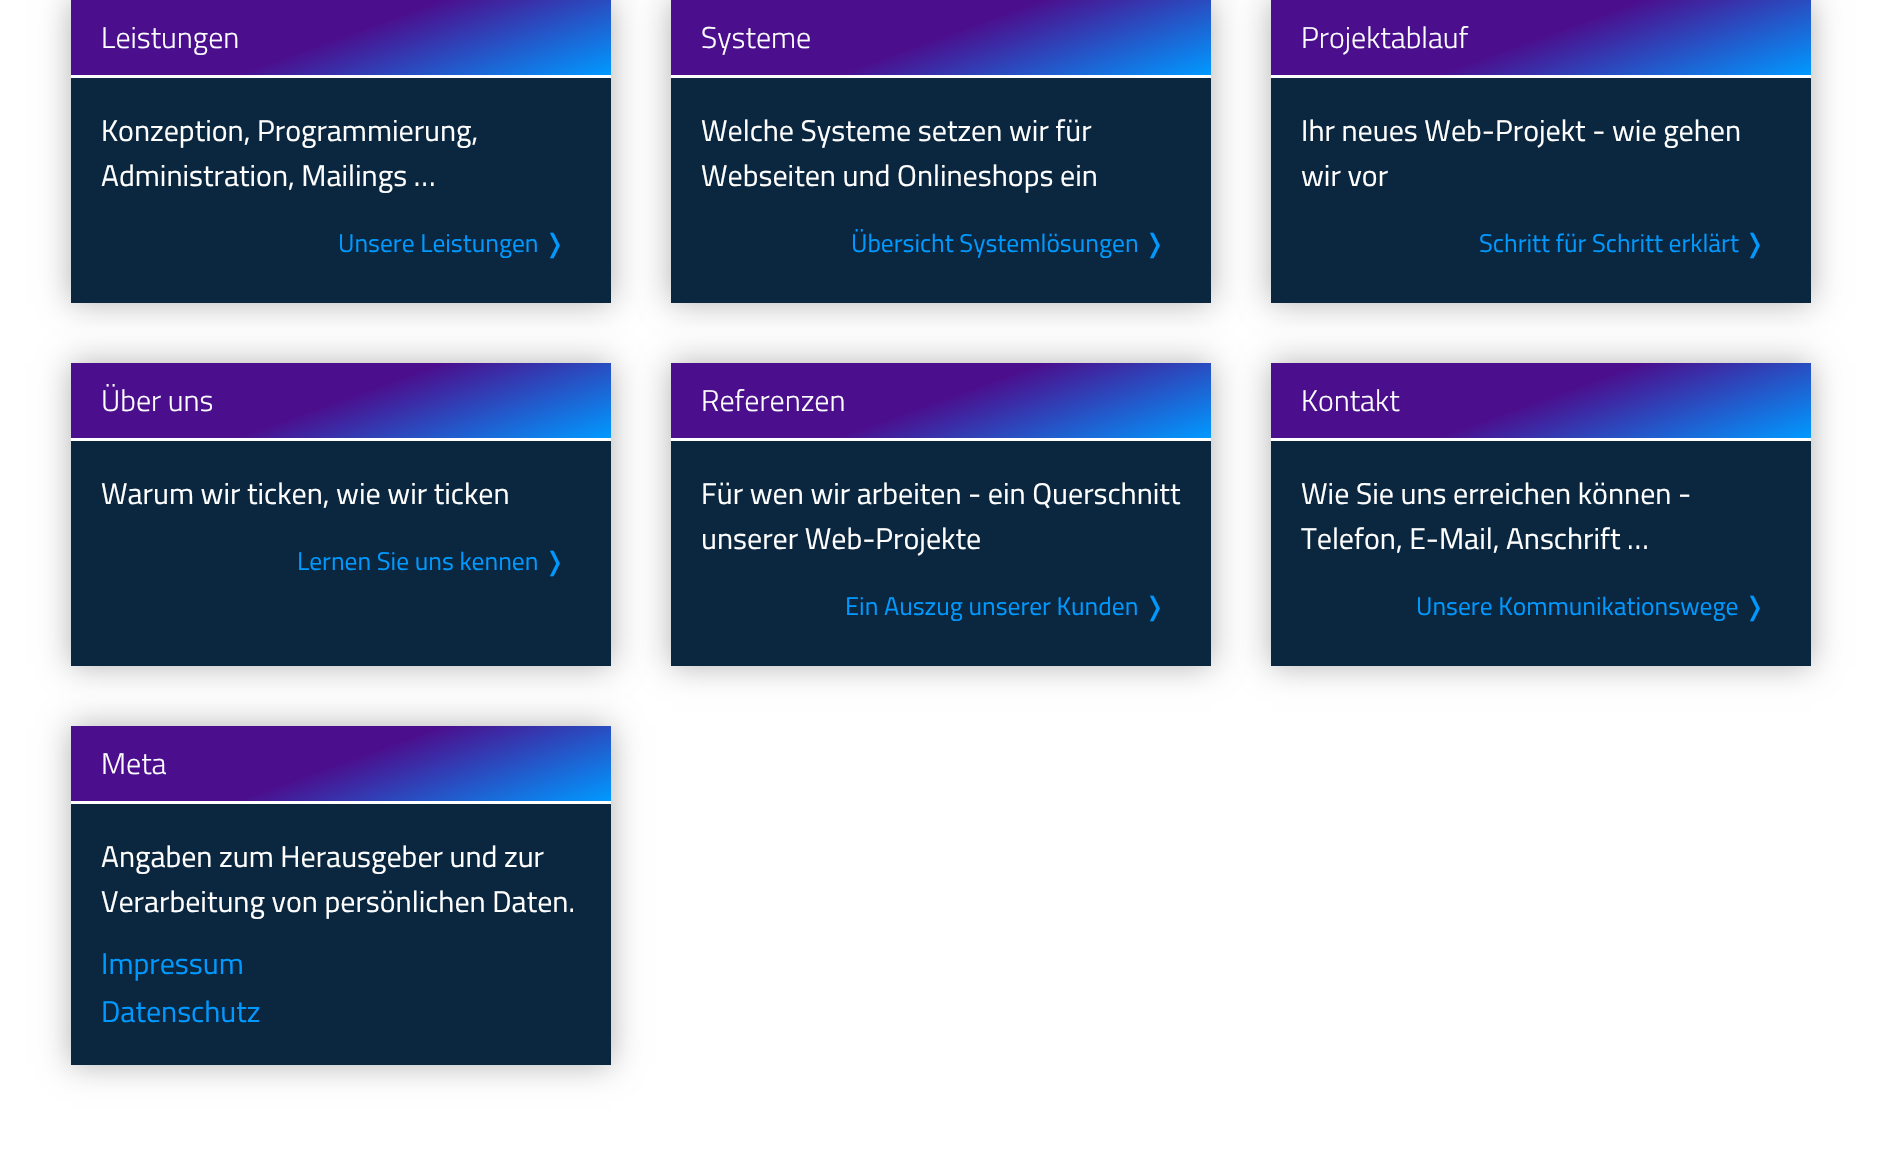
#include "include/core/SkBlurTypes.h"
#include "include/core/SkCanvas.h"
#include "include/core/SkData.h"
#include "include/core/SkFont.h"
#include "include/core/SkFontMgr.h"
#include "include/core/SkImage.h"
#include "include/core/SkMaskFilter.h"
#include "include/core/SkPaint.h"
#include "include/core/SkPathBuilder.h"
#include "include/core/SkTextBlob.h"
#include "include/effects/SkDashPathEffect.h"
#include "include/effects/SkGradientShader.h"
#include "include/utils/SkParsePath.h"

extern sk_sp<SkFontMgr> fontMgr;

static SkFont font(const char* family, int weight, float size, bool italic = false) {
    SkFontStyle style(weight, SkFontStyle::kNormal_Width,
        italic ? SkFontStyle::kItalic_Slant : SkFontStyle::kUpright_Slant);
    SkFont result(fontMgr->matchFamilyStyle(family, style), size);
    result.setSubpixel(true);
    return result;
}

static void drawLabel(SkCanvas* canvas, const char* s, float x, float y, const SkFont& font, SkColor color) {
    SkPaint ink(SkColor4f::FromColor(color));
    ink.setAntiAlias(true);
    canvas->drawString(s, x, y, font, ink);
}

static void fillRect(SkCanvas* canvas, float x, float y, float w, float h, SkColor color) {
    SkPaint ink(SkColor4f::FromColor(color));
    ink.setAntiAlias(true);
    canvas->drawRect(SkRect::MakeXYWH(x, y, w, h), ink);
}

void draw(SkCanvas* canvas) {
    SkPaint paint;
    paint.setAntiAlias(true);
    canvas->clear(0xFFFFFFFF);
    paint.setColor(0x4D000000);
    paint.setMaskFilter(SkMaskFilter::MakeBlur(kNormal_SkBlurStyle, 15));
    canvas->drawRect(SkRect::MakeXYWH(71, 0, 540, 303), paint);
    paint.setMaskFilter(nullptr);
    fillRect(canvas, 71, 78, 540, 225, 0xFF0B2740);
    {
        const SkColor colors[] = {0xFF0099FF, 0xFF4B0F8E};
        const float stops[] = {0, 0.5f};
        const SkPoint ends[] = {{384, 157}, {297, -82}};
        paint.setShader(SkGradientShader::MakeLinear(ends, colors, stops, 2, SkTileMode::kClamp));
        paint.setAlpha(255);
    }
    canvas->drawRect(SkRect::MakeXYWH(71, 0, 540, 75), paint);
    fillRect(canvas, 71, 75, 540, 3, 0xFFFFFFFF);
    SkFont font1 = font("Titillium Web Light", 300, 30);
    drawLabel(canvas, "Leistungen", 101, 48, font1, 0xFFFFFFFF);
    SkFont font2 = font("Titillium Web", 400, 30);
    drawLabel(canvas, "Konzeption, Programmierung,", 101, 141, font2, 0xFFFFFFFF);
    drawLabel(canvas, "Administration, Mailings …", 101, 186, font2, 0xFFFFFFFF);
    SkFont font3 = font("Titillium Web", 400, 25.5f);
    drawLabel(canvas, "Unsere Leistungen", 338, 252, font3, 0xFF0099FF);
    SkFont font4 = font("DejaVu Sans", 400, 25.5f);
    drawLabel(canvas, "❭", 544, 252, font4, 0xFF0099FF);
    paint.setShader(nullptr);
    paint.setColor(0x4D000000);
    paint.setMaskFilter(SkMaskFilter::MakeBlur(kNormal_SkBlurStyle, 15));
    canvas->drawRect(SkRect::MakeXYWH(671, 0, 540, 303), paint);
    paint.setMaskFilter(nullptr);
    fillRect(canvas, 671, 78, 540, 225, 0xFF0B2740);
    {
        const SkColor colors[] = {0xFF0099FF, 0xFF4B0F8E};
        const float stops[] = {0, 0.5f};
        const SkPoint ends[] = {{984, 157}, {897, -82}};
        paint.setShader(SkGradientShader::MakeLinear(ends, colors, stops, 2, SkTileMode::kClamp));
        paint.setAlpha(255);
    }
    canvas->drawRect(SkRect::MakeXYWH(671, 0, 540, 75), paint);
    fillRect(canvas, 671, 75, 540, 3, 0xFFFFFFFF);
    drawLabel(canvas, "Systeme", 701, 48, font1, 0xFFFFFFFF);
    drawLabel(canvas, "Welche Systeme setzen wir für", 701, 141, font2, 0xFFFFFFFF);
    drawLabel(canvas, "Webseiten und Onlineshops ein", 701, 186, font2, 0xFFFFFFFF);
    drawLabel(canvas, "Übersicht Systemlösungen", 851, 252, font3, 0xFF0099FF);
    drawLabel(canvas, "❭", 1144, 252, font4, 0xFF0099FF);
    paint.setShader(nullptr);
    paint.setColor(0x4D000000);
    paint.setMaskFilter(SkMaskFilter::MakeBlur(kNormal_SkBlurStyle, 15));
    canvas->drawRect(SkRect::MakeXYWH(1271, 0, 540, 303), paint);
    paint.setMaskFilter(nullptr);
    fillRect(canvas, 1271, 78, 540, 225, 0xFF0B2740);
    {
        const SkColor colors[] = {0xFF0099FF, 0xFF4B0F8E};
        const float stops[] = {0, 0.5f};
        const SkPoint ends[] = {{1584, 157}, {1497, -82}};
        paint.setShader(SkGradientShader::MakeLinear(ends, colors, stops, 2, SkTileMode::kClamp));
        paint.setAlpha(255);
    }
    canvas->drawRect(SkRect::MakeXYWH(1271, 0, 540, 75), paint);
    fillRect(canvas, 1271, 75, 540, 3, 0xFFFFFFFF);
    drawLabel(canvas, "Projektablauf", 1301, 48, font1, 0xFFFFFFFF);
    drawLabel(canvas, "Ihr neues Web-Projekt - wie gehen", 1301, 141, font2, 0xFFFFFFFF);
    drawLabel(canvas, "wir vor", 1301, 186, font2, 0xFFFFFFFF);
    drawLabel(canvas, "Schritt für Schritt erklärt", 1479, 252, font3, 0xFF0099FF);
    drawLabel(canvas, "❭", 1744, 252, font4, 0xFF0099FF);
    paint.setShader(nullptr);
    paint.setColor(0x4D000000);
    paint.setMaskFilter(SkMaskFilter::MakeBlur(kNormal_SkBlurStyle, 15));
    canvas->drawRect(SkRect::MakeXYWH(71, 363, 540, 303), paint);
    paint.setMaskFilter(nullptr);
    fillRect(canvas, 71, 441, 540, 225, 0xFF0B2740);
    {
        const SkColor colors[] = {0xFF0099FF, 0xFF4B0F8E};
        const float stops[] = {0, 0.5f};
        const SkPoint ends[] = {{384, 520}, {297, 281}};
        paint.setShader(SkGradientShader::MakeLinear(ends, colors, stops, 2, SkTileMode::kClamp));
        paint.setAlpha(255);
    }
    canvas->drawRect(SkRect::MakeXYWH(71, 363, 540, 75), paint);
    fillRect(canvas, 71, 438, 540, 3, 0xFFFFFFFF);
    drawLabel(canvas, "Über uns", 101, 411, font1, 0xFFFFFFFF);
    drawLabel(canvas, "Warum wir ticken, wie wir ticken", 101, 504, font2, 0xFFFFFFFF);
    drawLabel(canvas, "Lernen Sie uns kennen", 297, 570, font3, 0xFF0099FF);
    drawLabel(canvas, "❭", 544, 570, font4, 0xFF0099FF);
    paint.setShader(nullptr);
    paint.setColor(0x4D000000);
    paint.setMaskFilter(SkMaskFilter::MakeBlur(kNormal_SkBlurStyle, 15));
    canvas->drawRect(SkRect::MakeXYWH(671, 363, 540, 303), paint);
    paint.setMaskFilter(nullptr);
    fillRect(canvas, 671, 441, 540, 225, 0xFF0B2740);
    {
        const SkColor colors[] = {0xFF0099FF, 0xFF4B0F8E};
        const float stops[] = {0, 0.5f};
        const SkPoint ends[] = {{984, 520}, {897, 281}};
        paint.setShader(SkGradientShader::MakeLinear(ends, colors, stops, 2, SkTileMode::kClamp));
        paint.setAlpha(255);
    }
    canvas->drawRect(SkRect::MakeXYWH(671, 363, 540, 75), paint);
    fillRect(canvas, 671, 438, 540, 3, 0xFFFFFFFF);
    drawLabel(canvas, "Referenzen", 701, 411, font1, 0xFFFFFFFF);
    drawLabel(canvas, "Für wen wir arbeiten - ein Querschnitt", 701, 504, font2, 0xFFFFFFFF);
    drawLabel(canvas, "unserer Web-Projekte", 701, 549, font2, 0xFFFFFFFF);
    drawLabel(canvas, "Ein Auszug unserer Kunden", 845, 615, font3, 0xFF0099FF);
    drawLabel(canvas, "❭", 1144, 615, font4, 0xFF0099FF);
    paint.setShader(nullptr);
    paint.setColor(0x4D000000);
    paint.setMaskFilter(SkMaskFilter::MakeBlur(kNormal_SkBlurStyle, 15));
    canvas->drawRect(SkRect::MakeXYWH(1271, 363, 540, 303), paint);
    paint.setMaskFilter(nullptr);
    fillRect(canvas, 1271, 441, 540, 225, 0xFF0B2740);
    {
        const SkColor colors[] = {0xFF0099FF, 0xFF4B0F8E};
        const float stops[] = {0, 0.5f};
        const SkPoint ends[] = {{1584, 520}, {1497, 281}};
        paint.setShader(SkGradientShader::MakeLinear(ends, colors, stops, 2, SkTileMode::kClamp));
        paint.setAlpha(255);
    }
    canvas->drawRect(SkRect::MakeXYWH(1271, 363, 540, 75), paint);
    fillRect(canvas, 1271, 438, 540, 3, 0xFFFFFFFF);
    drawLabel(canvas, "Kontakt", 1301, 411, font1, 0xFFFFFFFF);
    drawLabel(canvas, "Wie Sie uns erreichen können -", 1301, 504, font2, 0xFFFFFFFF);
    drawLabel(canvas, "Telefon, E-Mail, Anschrift …", 1301, 549, font2, 0xFFFFFFFF);
    drawLabel(canvas, "Unsere Kommunikationswege", 1416, 615, font3, 0xFF0099FF);
    drawLabel(canvas, "❭", 1744, 615, font4, 0xFF0099FF);
    paint.setShader(nullptr);
    paint.setColor(0x4D000000);
    paint.setMaskFilter(SkMaskFilter::MakeBlur(kNormal_SkBlurStyle, 15));
    canvas->drawRect(SkRect::MakeXYWH(71, 726, 540, 339), paint);
    paint.setMaskFilter(nullptr);
    fillRect(canvas, 71, 804, 540, 261, 0xFF0B2740);
    {
        const SkColor colors[] = {0xFF0099FF, 0xFF4B0F8E};
        const float stops[] = {0, 0.5f};
        const SkPoint ends[] = {{384, 883}, {297, 644}};
        paint.setShader(SkGradientShader::MakeLinear(ends, colors, stops, 2, SkTileMode::kClamp));
        paint.setAlpha(255);
    }
    canvas->drawRect(SkRect::MakeXYWH(71, 726, 540, 75), paint);
    fillRect(canvas, 71, 801, 540, 3, 0xFFFFFFFF);
    drawLabel(canvas, "Meta", 101, 774, font1, 0xFFFFFFFF);
    drawLabel(canvas, "Angaben zum Herausgeber und zur", 101, 867, font2, 0xFFFFFFFF);
    drawLabel(canvas, "Verarbeitung von persönlichen Daten.", 101, 912, font2, 0xFFFFFFFF);
    drawLabel(canvas, "Impressum", 101, 974, font2, 0xFF0099FF);
    drawLabel(canvas, "Datenschutz", 101, 1022, font2, 0xFF0099FF);
}
